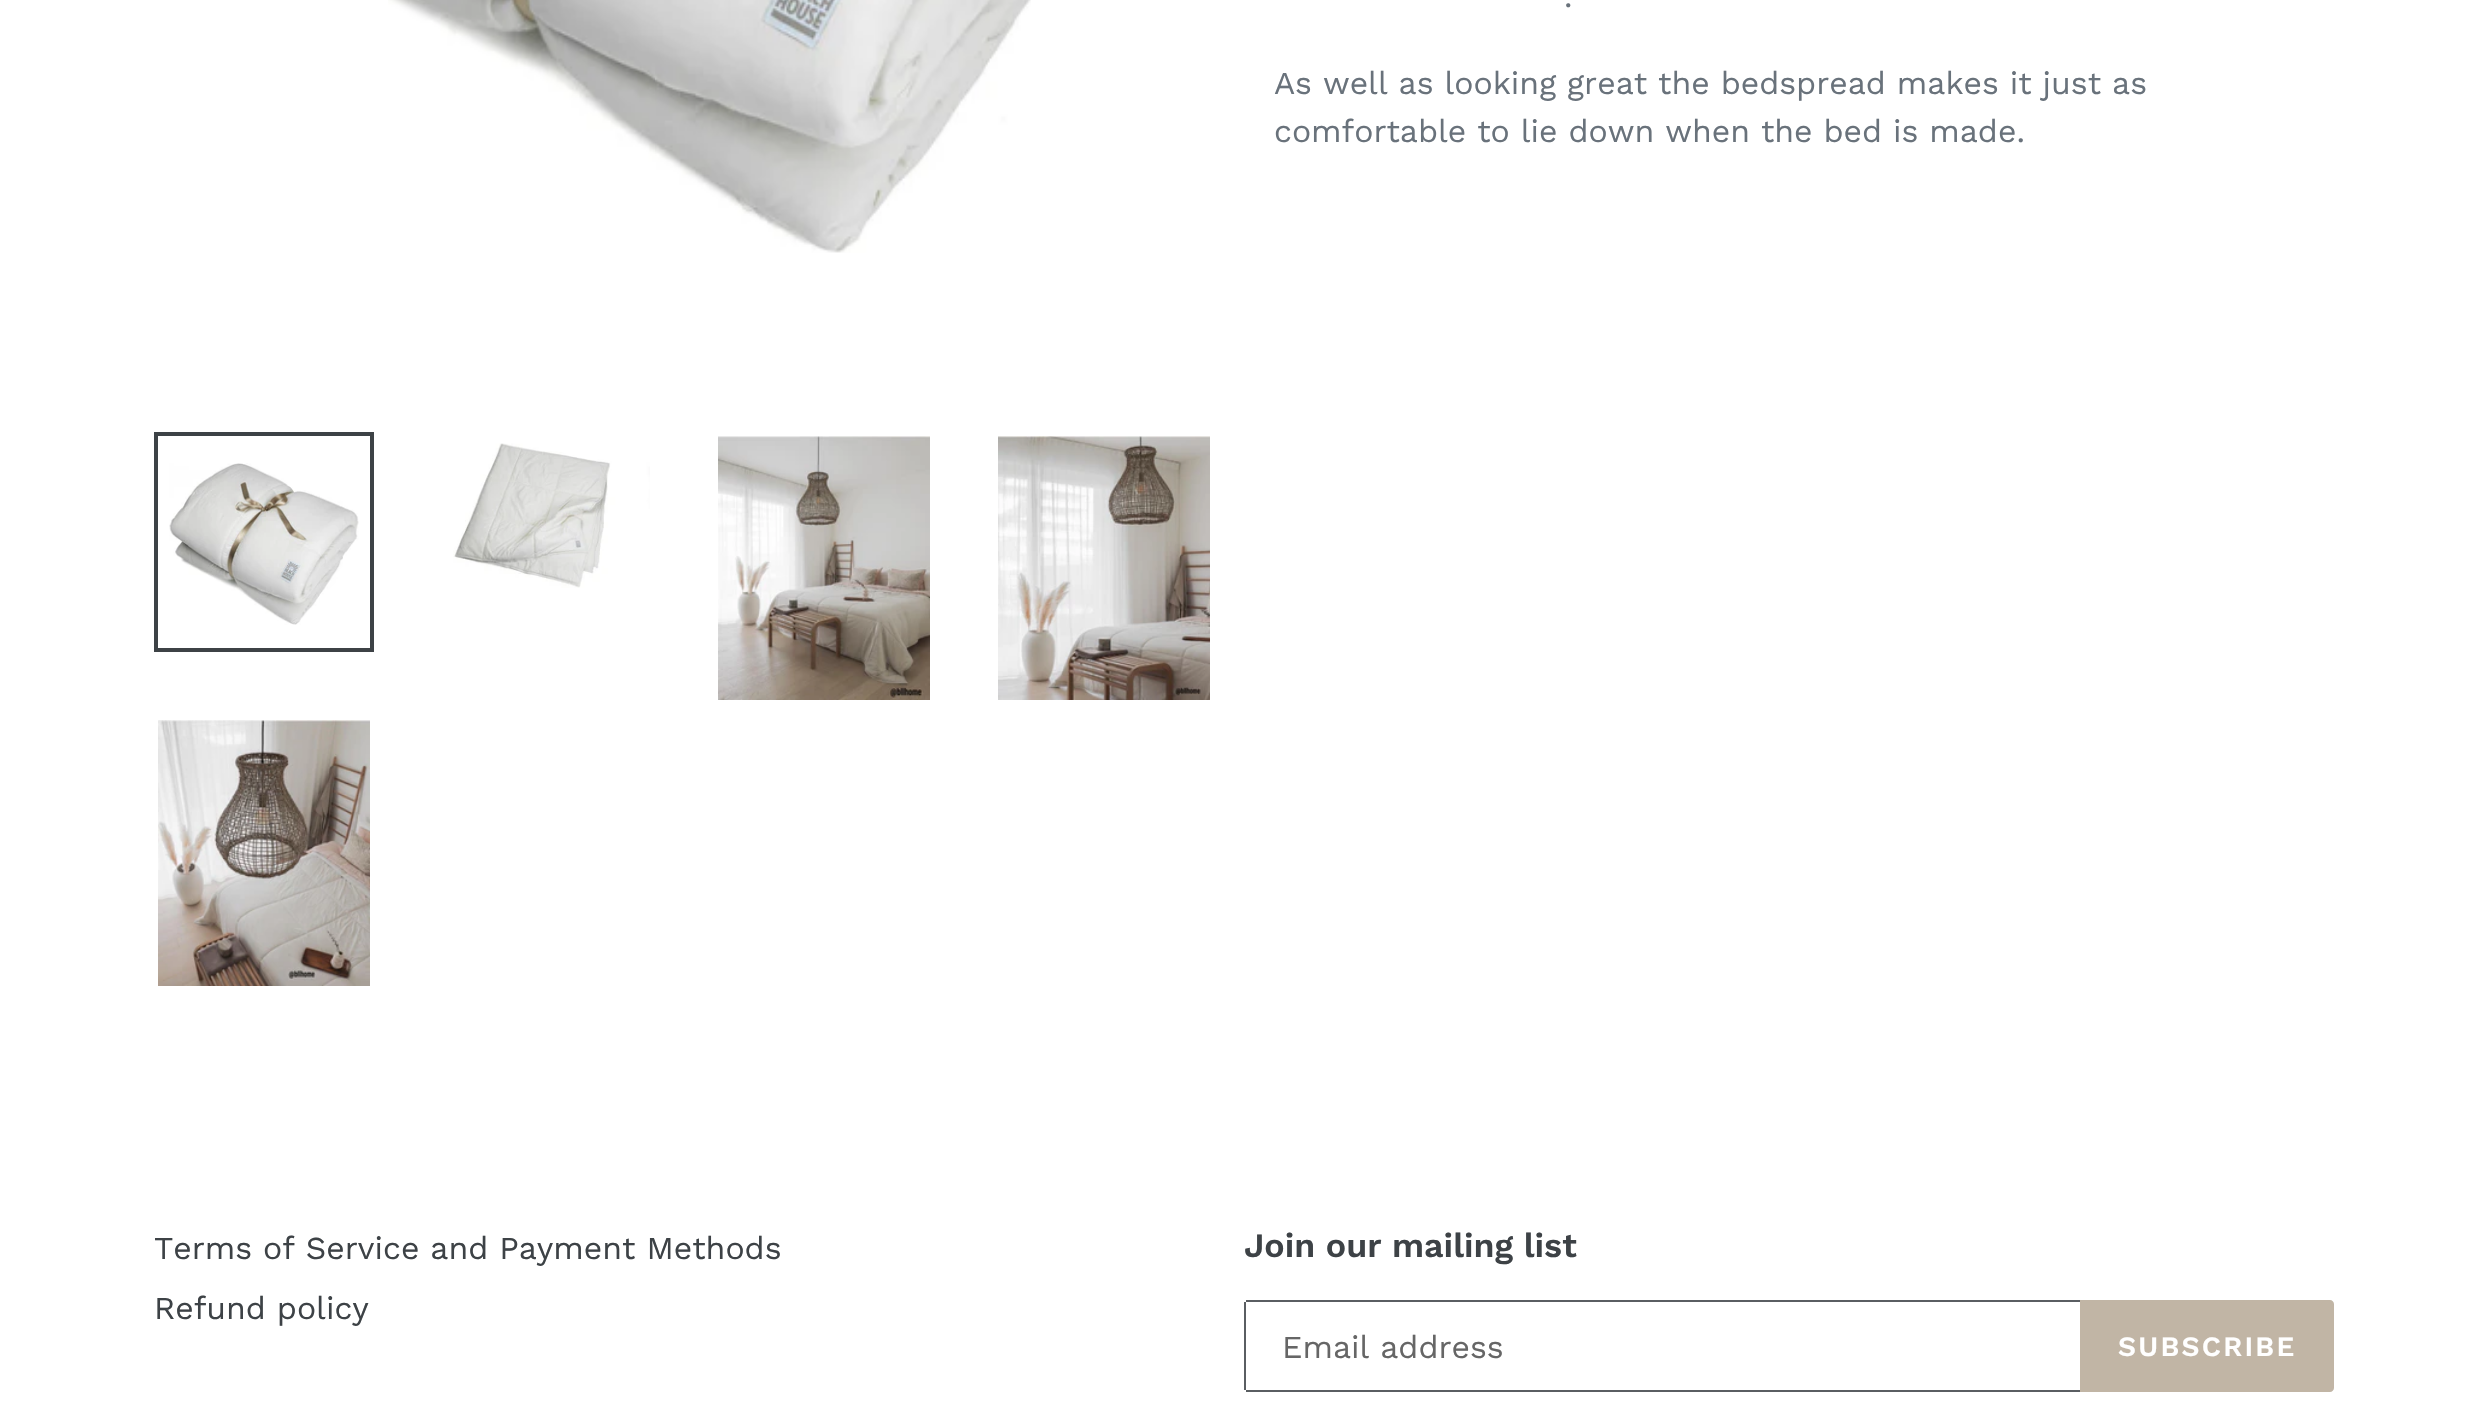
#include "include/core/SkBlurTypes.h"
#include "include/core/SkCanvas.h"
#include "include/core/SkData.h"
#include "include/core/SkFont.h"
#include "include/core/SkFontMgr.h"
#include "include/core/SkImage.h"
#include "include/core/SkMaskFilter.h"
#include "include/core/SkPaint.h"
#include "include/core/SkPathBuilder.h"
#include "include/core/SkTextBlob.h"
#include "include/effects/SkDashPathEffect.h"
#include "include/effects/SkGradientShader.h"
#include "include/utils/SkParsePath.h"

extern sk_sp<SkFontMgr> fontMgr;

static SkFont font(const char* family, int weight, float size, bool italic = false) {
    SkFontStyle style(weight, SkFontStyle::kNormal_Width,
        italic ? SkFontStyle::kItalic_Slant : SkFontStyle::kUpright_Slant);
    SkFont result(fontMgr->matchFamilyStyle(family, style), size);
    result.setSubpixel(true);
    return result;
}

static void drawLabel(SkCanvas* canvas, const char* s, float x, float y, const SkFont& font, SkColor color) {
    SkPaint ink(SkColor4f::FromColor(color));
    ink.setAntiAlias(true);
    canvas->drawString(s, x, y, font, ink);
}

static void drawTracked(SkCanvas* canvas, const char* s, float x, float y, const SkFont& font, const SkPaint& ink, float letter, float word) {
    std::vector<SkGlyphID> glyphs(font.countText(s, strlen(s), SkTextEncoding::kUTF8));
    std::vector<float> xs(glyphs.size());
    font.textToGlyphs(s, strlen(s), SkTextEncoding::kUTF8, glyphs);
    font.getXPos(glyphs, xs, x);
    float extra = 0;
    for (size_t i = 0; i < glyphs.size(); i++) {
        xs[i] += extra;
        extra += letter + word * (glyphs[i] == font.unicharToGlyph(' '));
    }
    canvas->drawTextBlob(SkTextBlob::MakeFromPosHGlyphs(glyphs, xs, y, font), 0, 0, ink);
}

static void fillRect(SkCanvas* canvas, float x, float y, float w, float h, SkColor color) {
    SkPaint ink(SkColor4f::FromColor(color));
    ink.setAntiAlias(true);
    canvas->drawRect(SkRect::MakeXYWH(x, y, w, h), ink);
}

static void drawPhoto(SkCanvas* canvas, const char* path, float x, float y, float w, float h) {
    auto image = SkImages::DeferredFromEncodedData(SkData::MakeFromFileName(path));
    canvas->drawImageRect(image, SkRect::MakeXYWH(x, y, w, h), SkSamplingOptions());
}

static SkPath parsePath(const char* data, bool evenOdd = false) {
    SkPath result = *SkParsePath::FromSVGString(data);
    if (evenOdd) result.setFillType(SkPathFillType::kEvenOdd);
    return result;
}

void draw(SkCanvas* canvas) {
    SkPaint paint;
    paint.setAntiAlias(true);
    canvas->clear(0xFFFFFFFF);
    drawPhoto(canvas, "assets/img1.png", 388, 0, 643, 253);
    paint.setStroke(true);
    paint.setStrokeWidth(4);
    paint.setColor(0xFF3D4246);
    canvas->drawRect(SkRect::MakeXYWH(156, 434, 216, 216), paint);
    drawPhoto(canvas, "assets/img2.png", 169, 463, 190, 162);
    drawPhoto(canvas, "assets/img3.png", 453, 443, 197, 145);
    drawPhoto(canvas, "assets/img4.png", 718, 436, 212, 264);
    drawPhoto(canvas, "assets/img5.png", 998, 436, 212, 264);
    drawPhoto(canvas, "assets/img6.png", 158, 720, 212, 266);
    SkFont font1 = font("Work Sans", 400, 32);
    drawLabel(canvas, ".", 1564, 7, font1, 0xFF69727B);
    drawLabel(canvas, "As well as looking great the bedspread makes it just as", 1274, 94, font1, 0xFF69727B);
    drawLabel(canvas, "comfortable to lie down when the bed is made.", 1274, 142, font1, 0xFF69727B);
    drawLabel(canvas, "Terms of Service and Payment Methods", 154, 1259, font1, 0xFF3D4246);
    drawLabel(canvas, "Refund policy", 154, 1319, font1, 0xFF3D4246);
    SkFont font2 = font("Work Sans", 600, 34);
    drawLabel(canvas, "Join our mailing list", 1244, 1257, font2, 0xFF3D4246);
    fillRect(canvas, 1246, 1300, 834, 2, 0xFF5A5E62);
    fillRect(canvas, 1246, 1390, 834, 2, 0xFF5A5E62);
    fillRect(canvas, 1244, 1302, 2, 88, 0xFF5A5E62);
    drawLabel(canvas, "Email address", 1282, 1358, font1, 0xFF666666);
    paint.setStroke(false);
    paint.setColor(0xFFC1B5A5);
    canvas->drawPath(parsePath("M2080 1300H2330C2332 1300 2334 1302 2334 1304V1388C2334 1390 2332 1392 2330 1392H2080Z"), paint);
    SkFont font3 = font("Work Sans", 600, 28);
    paint.setColor(0xFFFFFFFF);
    drawTracked(canvas, "SUBSCRIBE", 2118, 1356, font3, paint, 2.25f, 0);
}
